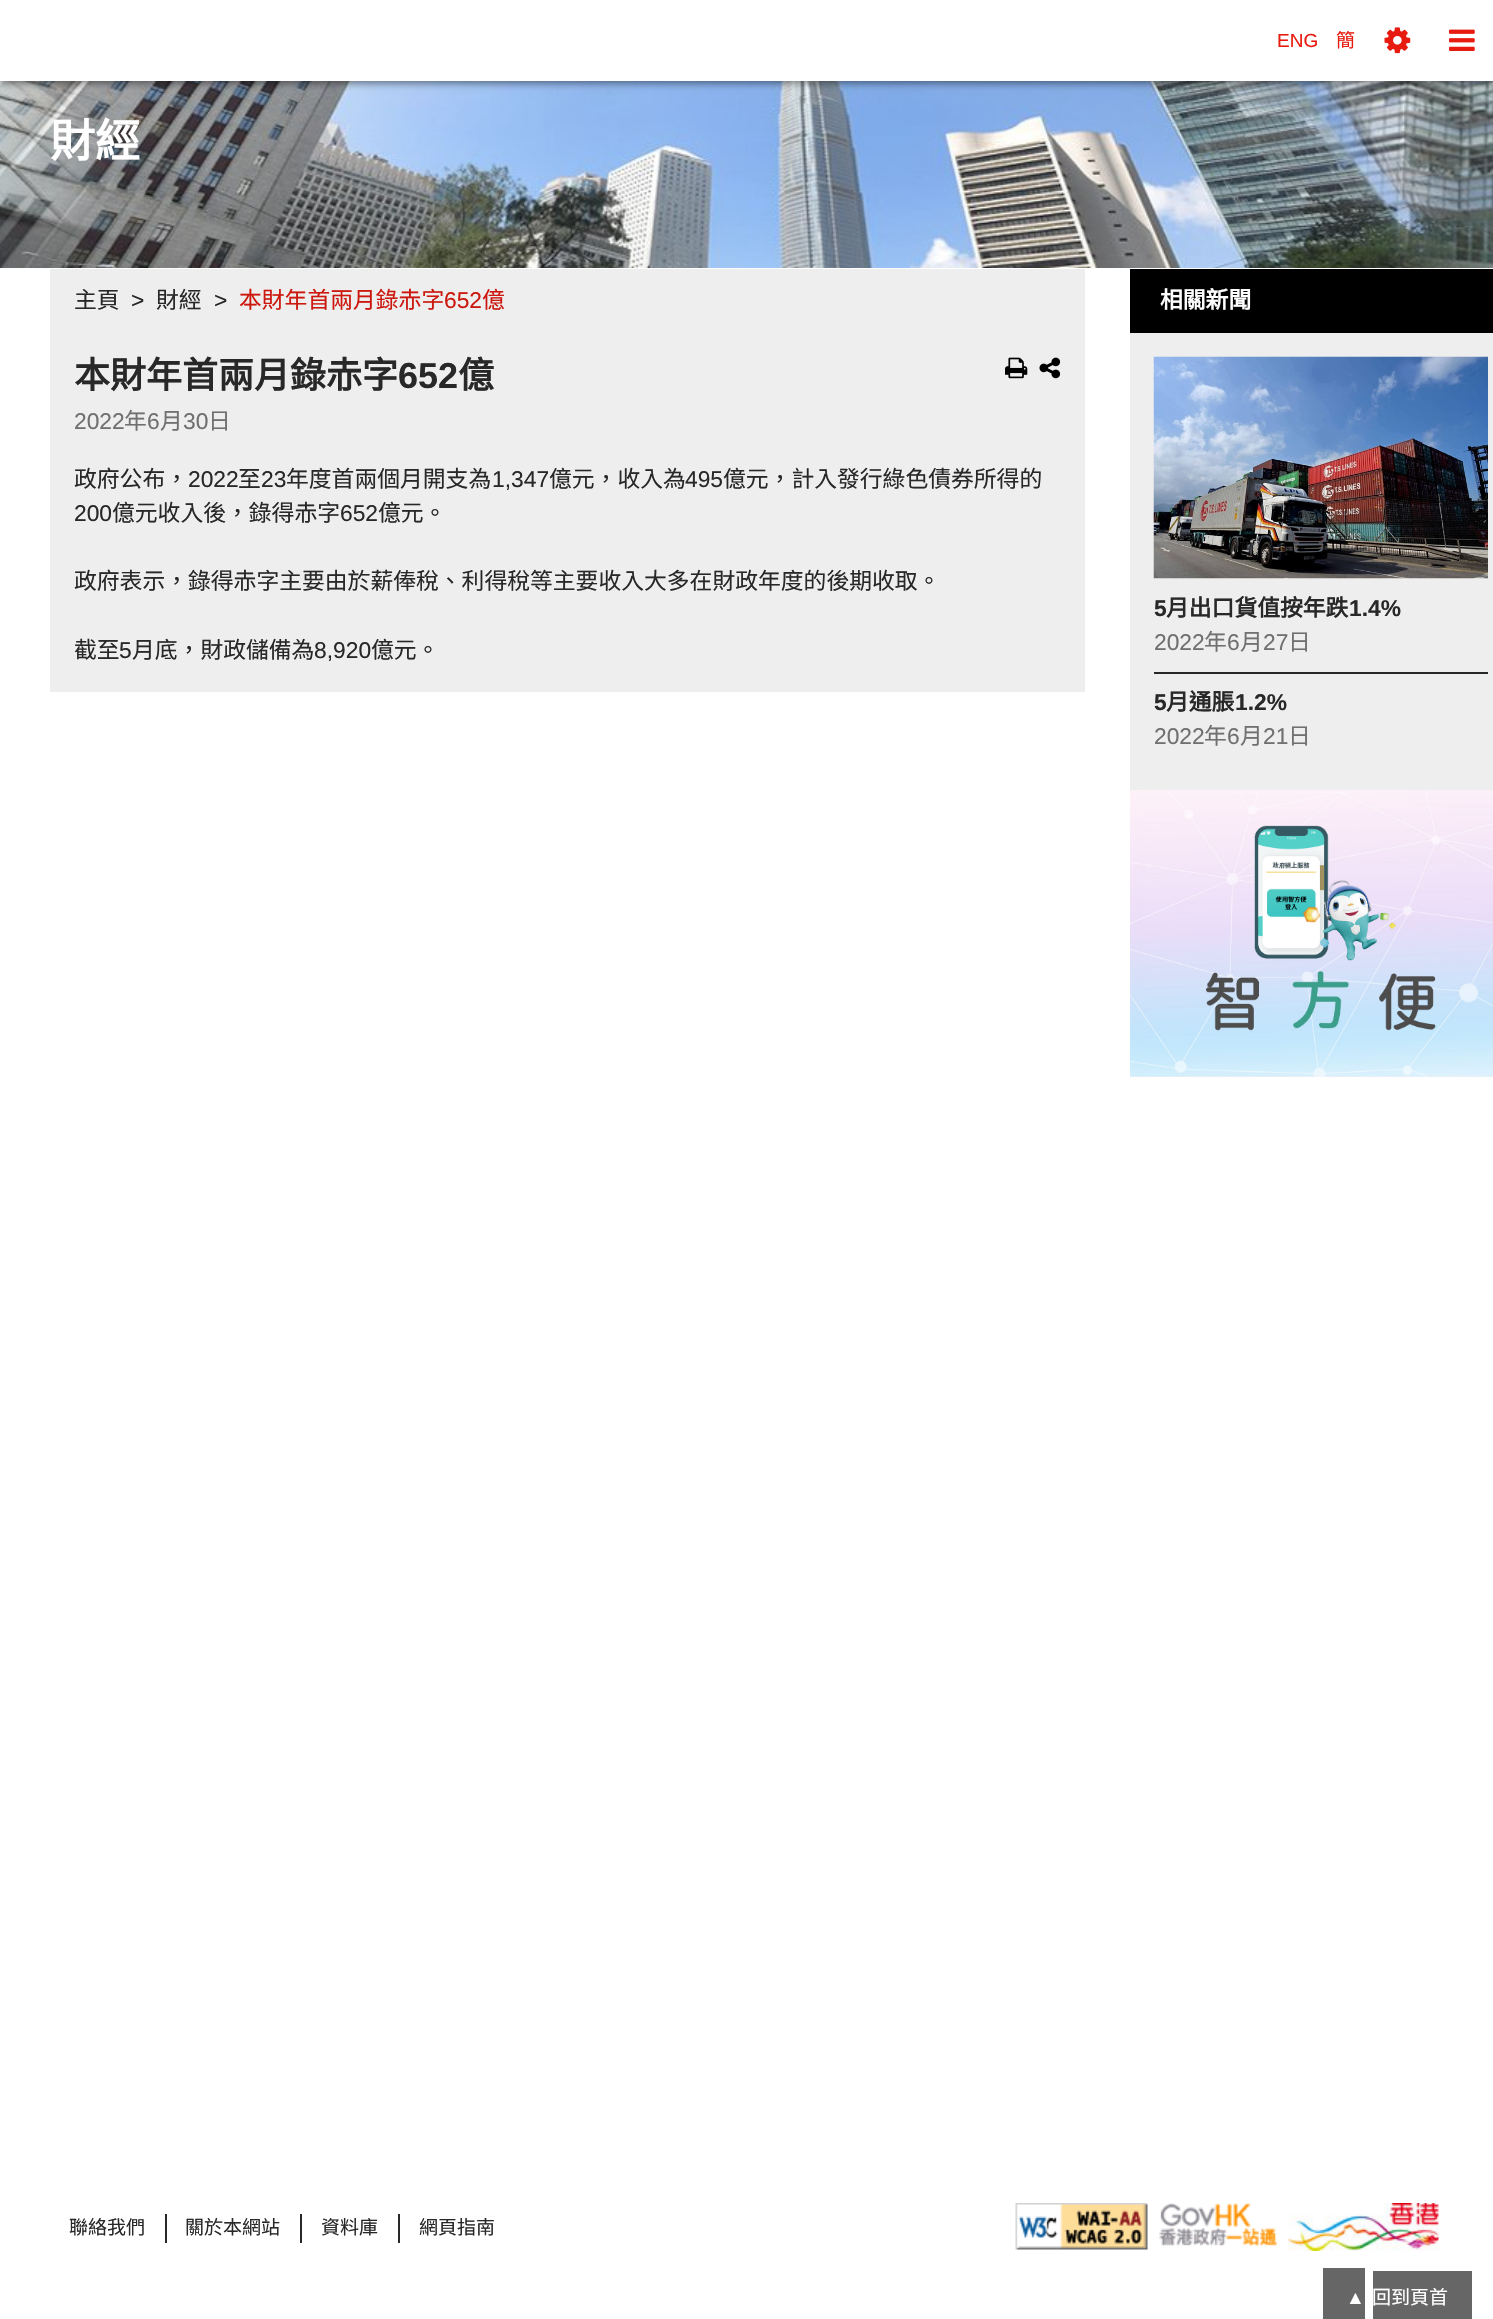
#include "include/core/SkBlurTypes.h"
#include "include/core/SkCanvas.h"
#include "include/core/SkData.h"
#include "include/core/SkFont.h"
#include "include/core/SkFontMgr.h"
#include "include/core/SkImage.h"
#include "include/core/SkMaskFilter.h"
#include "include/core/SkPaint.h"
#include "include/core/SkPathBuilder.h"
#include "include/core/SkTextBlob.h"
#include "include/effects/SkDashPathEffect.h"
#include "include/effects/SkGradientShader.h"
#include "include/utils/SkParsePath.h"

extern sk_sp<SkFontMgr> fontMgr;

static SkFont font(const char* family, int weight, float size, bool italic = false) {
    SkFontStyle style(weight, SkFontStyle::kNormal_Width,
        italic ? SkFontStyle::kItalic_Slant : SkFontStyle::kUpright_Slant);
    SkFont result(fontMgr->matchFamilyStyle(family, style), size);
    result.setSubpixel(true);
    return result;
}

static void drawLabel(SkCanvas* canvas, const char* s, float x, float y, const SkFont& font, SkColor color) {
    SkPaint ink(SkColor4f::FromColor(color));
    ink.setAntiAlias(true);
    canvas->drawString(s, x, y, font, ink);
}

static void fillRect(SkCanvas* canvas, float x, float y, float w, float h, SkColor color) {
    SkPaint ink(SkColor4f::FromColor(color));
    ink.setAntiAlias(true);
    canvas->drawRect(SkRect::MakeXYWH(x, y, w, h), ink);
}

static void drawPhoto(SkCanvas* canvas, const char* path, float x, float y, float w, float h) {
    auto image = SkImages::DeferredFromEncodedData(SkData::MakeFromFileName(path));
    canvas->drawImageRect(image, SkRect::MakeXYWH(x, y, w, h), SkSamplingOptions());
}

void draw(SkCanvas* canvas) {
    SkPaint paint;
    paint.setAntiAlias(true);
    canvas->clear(0xFFFFFFFF);
    drawPhoto(canvas, "assets/img3.png", 0, 81, 1493, 187);
    paint.setColor(0x80000000);
    paint.setMaskFilter(SkMaskFilter::MakeBlur(kNormal_SkBlurStyle, 4));
    canvas->drawRect(SkRect::MakeXYWH(0, 2, 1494, 81), paint);
    paint.setMaskFilter(nullptr);
    fillRect(canvas, 0, 0, 1493, 81, 0xFFFFFFFF);
    SkFont font1 = font("Liberation Sans", 400, 19);
    drawLabel(canvas, "ENG", 1277, 47, font1, 0xFFE81B10);
    SkFont font2 = font("Noto Sans CJK HK", 400, 19);
    drawLabel(canvas, "簡", 1336, 47, font2, 0xFFE81B10);
    drawPhoto(canvas, "assets/img1.png", 1384, 27, 27, 27);
    drawPhoto(canvas, "assets/img2.png", 1449, 29, 26, 22);
    SkFont font3 = font("Noto Sans CJK HK", 700, 45);
    drawLabel(canvas, "財經", 50, 157, font3, 0xFFFFFFFF);
    fillRect(canvas, 50, 269, 1035, 423, 0xFFEEEEEE);
    SkFont font4 = font("Noto Sans CJK HK", 400, 22.8f);
    drawLabel(canvas, "主頁", 74, 308, font4, 0xFF282828);
    SkFont font5 = font("Liberation Sans", 400, 22.8f);
    drawLabel(canvas, ">", 131, 308, font5, 0xFF282828);
    drawLabel(canvas, "財經", 156, 308, font4, 0xFF282828);
    drawLabel(canvas, ">", 214, 308, font5, 0xFF282828);
    drawLabel(canvas, "本財年首兩月錄赤字", 239, 308, font4, 0xFFCC180E);
    drawLabel(canvas, "652", 444, 308, font5, 0xFFCC180E);
    drawLabel(canvas, "億", 482, 308, font4, 0xFFCC180E);
    SkFont font6 = font("Noto Sans CJK HK", 700, 36);
    drawLabel(canvas, "本財年首兩月錄赤字", 74, 388, font6, 0xFF282828);
    SkFont font7 = font("Liberation Sans", 700, 36);
    drawLabel(canvas, "652", 398, 388, font7, 0xFF282828);
    drawLabel(canvas, "億", 458, 388, font6, 0xFF282828);
    drawPhoto(canvas, "assets/img4.png", 1005, 357, 23, 22);
    drawPhoto(canvas, "assets/img5.png", 1039, 357, 22, 22);
    drawLabel(canvas, "2022", 74, 429, font5, 0xFF707070);
    drawLabel(canvas, "年", 124, 429, font4, 0xFF707070);
    drawLabel(canvas, "6", 147, 429, font5, 0xFF707070);
    drawLabel(canvas, "月", 160, 429, font4, 0xFF707070);
    drawLabel(canvas, "30", 183, 429, font5, 0xFF707070);
    drawLabel(canvas, "日", 208, 429, font4, 0xFF707070);
    drawLabel(canvas, "政府公布，", 74, 487, font4, 0xFF282828);
    drawLabel(canvas, "2022", 188, 487, font5, 0xFF282828);
    drawLabel(canvas, "至", 238, 487, font4, 0xFF282828);
    drawLabel(canvas, "23", 261, 487, font5, 0xFF282828);
    drawLabel(canvas, "年度首兩個月開支為", 286, 487, font4, 0xFF282828);
    drawLabel(canvas, "1,347", 492, 487, font5, 0xFF282828);
    drawLabel(canvas, "億元，收入為", 549, 487, font4, 0xFF282828);
    drawLabel(canvas, "495", 685, 487, font5, 0xFF282828);
    drawLabel(canvas, "億元，計入發行綠色債券所得的", 723, 487, font4, 0xFF282828);
    drawLabel(canvas, "200", 74, 521, font5, 0xFF282828);
    drawLabel(canvas, "億元收入後，錄得赤字", 112, 521, font4, 0xFF282828);
    drawLabel(canvas, "652", 340, 521, font5, 0xFF282828);
    drawLabel(canvas, "億元。", 378, 521, font4, 0xFF282828);
    drawLabel(canvas, "政府表示，錄得赤字主要由於薪俸稅、利得稅等主要收入大多在財政年度的後期收取。", 74, 589, font4, 0xFF282828);
    drawLabel(canvas, "截至", 74, 658, font4, 0xFF282828);
    drawLabel(canvas, "5", 119, 658, font5, 0xFF282828);
    drawLabel(canvas, "月底，財政儲備為", 132, 658, font4, 0xFF282828);
    drawLabel(canvas, "8,920", 314, 658, font5, 0xFF282828);
    drawLabel(canvas, "億元。", 371, 658, font4, 0xFF282828);
    fillRect(canvas, 1130, 333, 363, 744, 0xFFEEEEEE);
    fillRect(canvas, 1130, 269, 363, 64, 0xFF000000);
    SkFont font8 = font("Noto Sans CJK HK", 700, 22.8f);
    drawLabel(canvas, "相關新聞", 1160, 308, font8, 0xFFFFFFFF);
    drawPhoto(canvas, "assets/img6.png", 1153, 356, 335, 223);
    SkFont font9 = font("Liberation Sans", 700, 22.8f);
    drawLabel(canvas, "5", 1154, 616, font9, 0xFF282828);
    drawLabel(canvas, "月出口貨值按年跌", 1166, 616, font8, 0xFF282828);
    drawLabel(canvas, "1.4%", 1349, 616, font9, 0xFF282828);
    drawLabel(canvas, "2022", 1154, 650, font5, 0xFF707070);
    drawLabel(canvas, "年", 1204, 650, font4, 0xFF707070);
    drawLabel(canvas, "6", 1227, 650, font5, 0xFF707070);
    drawLabel(canvas, "月", 1240, 650, font4, 0xFF707070);
    drawLabel(canvas, "27", 1263, 650, font5, 0xFF707070);
    drawLabel(canvas, "日", 1288, 650, font4, 0xFF707070);
    fillRect(canvas, 1154, 672, 334, 2, 0xFF282828);
    drawLabel(canvas, "5", 1154, 710, font9, 0xFF282828);
    drawLabel(canvas, "月通脹", 1166, 710, font8, 0xFF282828);
    drawLabel(canvas, "1.2%", 1235, 710, font9, 0xFF282828);
    drawLabel(canvas, "2022", 1154, 744, font5, 0xFF707070);
    drawLabel(canvas, "年", 1204, 744, font4, 0xFF707070);
    drawLabel(canvas, "6", 1227, 744, font5, 0xFF707070);
    drawLabel(canvas, "月", 1240, 744, font4, 0xFF707070);
    drawLabel(canvas, "21", 1263, 744, font5, 0xFF707070);
    drawLabel(canvas, "日", 1288, 744, font4, 0xFF707070);
    drawPhoto(canvas, "assets/img7.png", 1130, 790, 363, 287);
    drawLabel(canvas, "聯絡我們", 69, 2234, font2, 0xFF282828);
    fillRect(canvas, 165, 2214, 2, 29, 0xFF282828);
    drawLabel(canvas, "關於本網站", 185, 2234, font2, 0xFF282828);
    fillRect(canvas, 300, 2214, 2, 29, 0xFF282828);
    drawLabel(canvas, "資料庫", 321, 2234, font2, 0xFF282828);
    fillRect(canvas, 398, 2214, 2, 29, 0xFF282828);
    drawLabel(canvas, "網頁指南", 419, 2234, font2, 0xFF282828);
    drawPhoto(canvas, "assets/img8.png", 1015, 2203, 133, 47);
    drawPhoto(canvas, "assets/img9.png", 1159, 2203, 118, 44);
    drawPhoto(canvas, "assets/img10.png", 1288, 2203, 151, 48);
    fillRect(canvas, 1323, 2268, 42, 51, 0xFF666666);
    fillRect(canvas, 1373, 2271, 99, 48, 0xFF666666);
    drawLabel(canvas, "▲", 1346, 2304, font1, 0xFFFFFFFF);
    drawLabel(canvas, "回到頁首", 1372, 2304, font2, 0xFFFFFFFF);
}
